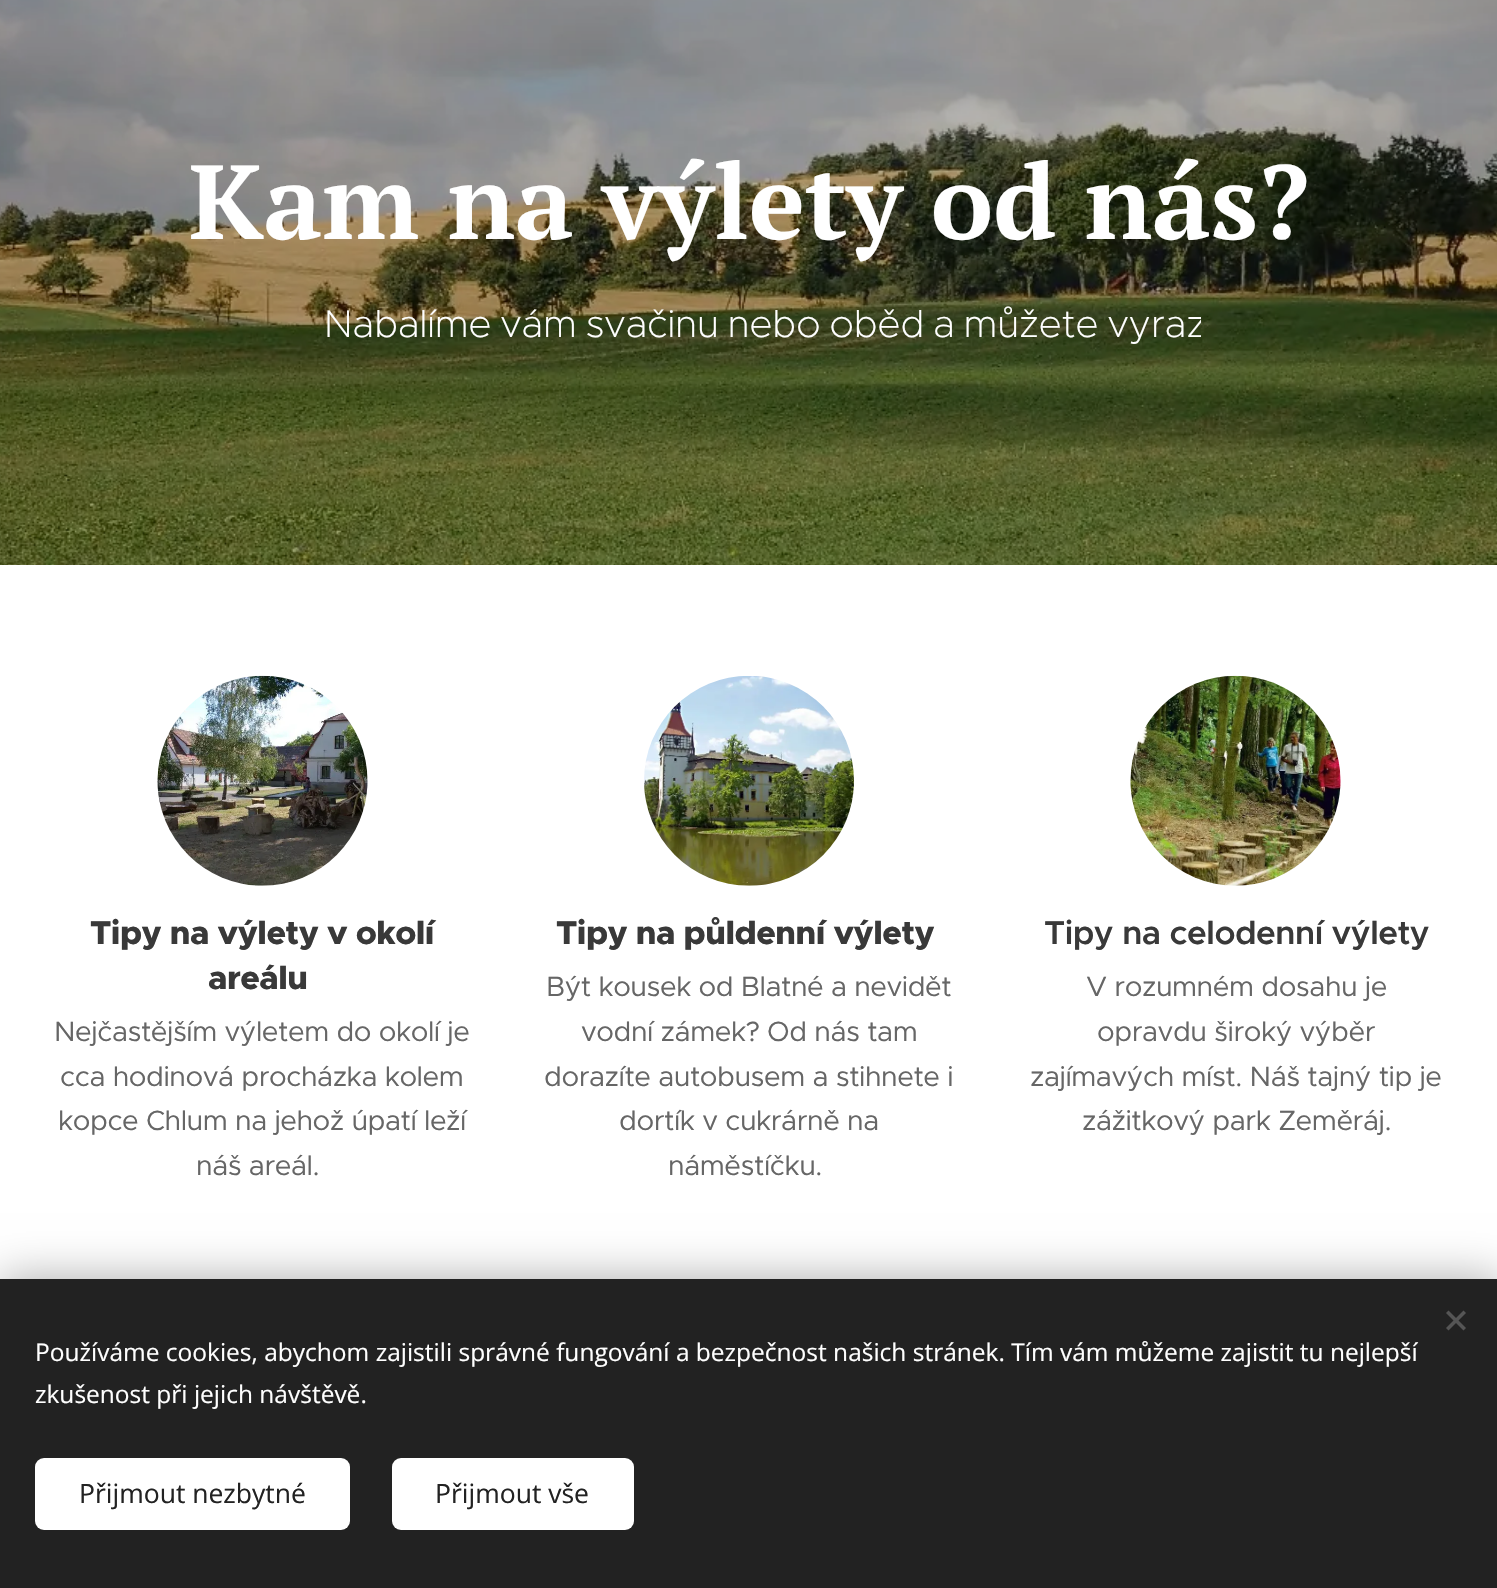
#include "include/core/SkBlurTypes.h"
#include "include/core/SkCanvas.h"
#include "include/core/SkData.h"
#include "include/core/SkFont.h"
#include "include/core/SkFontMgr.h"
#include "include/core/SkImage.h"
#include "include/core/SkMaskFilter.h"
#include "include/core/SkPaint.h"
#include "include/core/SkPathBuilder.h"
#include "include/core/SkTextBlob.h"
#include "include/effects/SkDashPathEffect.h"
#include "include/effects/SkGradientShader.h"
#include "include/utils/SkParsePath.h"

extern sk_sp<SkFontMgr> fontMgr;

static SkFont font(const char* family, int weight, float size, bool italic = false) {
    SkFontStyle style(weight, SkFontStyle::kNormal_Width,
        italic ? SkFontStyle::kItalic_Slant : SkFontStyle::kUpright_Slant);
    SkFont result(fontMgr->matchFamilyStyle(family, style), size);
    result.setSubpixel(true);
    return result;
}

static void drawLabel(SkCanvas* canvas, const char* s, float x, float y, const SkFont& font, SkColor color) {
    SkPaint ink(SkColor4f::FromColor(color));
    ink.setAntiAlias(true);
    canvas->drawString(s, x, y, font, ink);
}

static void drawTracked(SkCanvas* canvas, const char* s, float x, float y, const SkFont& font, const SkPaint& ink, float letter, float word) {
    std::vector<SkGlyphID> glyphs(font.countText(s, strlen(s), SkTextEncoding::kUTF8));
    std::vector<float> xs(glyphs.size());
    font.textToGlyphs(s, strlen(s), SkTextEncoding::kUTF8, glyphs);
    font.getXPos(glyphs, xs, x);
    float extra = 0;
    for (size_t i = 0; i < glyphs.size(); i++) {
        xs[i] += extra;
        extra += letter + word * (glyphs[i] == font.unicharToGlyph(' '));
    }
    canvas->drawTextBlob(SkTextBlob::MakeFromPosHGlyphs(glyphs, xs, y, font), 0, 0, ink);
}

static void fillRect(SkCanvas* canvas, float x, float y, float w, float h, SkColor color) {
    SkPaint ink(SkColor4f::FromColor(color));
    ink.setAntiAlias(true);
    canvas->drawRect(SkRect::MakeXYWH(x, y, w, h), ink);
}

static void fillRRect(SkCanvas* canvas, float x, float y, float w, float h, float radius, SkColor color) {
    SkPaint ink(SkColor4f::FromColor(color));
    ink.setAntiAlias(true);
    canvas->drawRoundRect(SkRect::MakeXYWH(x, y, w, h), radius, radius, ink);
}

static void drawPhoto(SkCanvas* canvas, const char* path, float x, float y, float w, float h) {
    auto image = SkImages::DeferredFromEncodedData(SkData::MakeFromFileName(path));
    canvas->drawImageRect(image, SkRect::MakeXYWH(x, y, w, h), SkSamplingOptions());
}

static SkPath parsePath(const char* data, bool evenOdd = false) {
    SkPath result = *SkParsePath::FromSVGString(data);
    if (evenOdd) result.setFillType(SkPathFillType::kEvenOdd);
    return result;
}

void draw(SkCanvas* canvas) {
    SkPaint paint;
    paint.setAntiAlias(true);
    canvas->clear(0xFFFFFFFF);
    drawPhoto(canvas, "assets/img1.png", 0, 0, 1497, 565);
    SkFont font1 = font("PT Serif", 700, 105);
    drawLabel(canvas, "Kam na výlety od nás?", 189, 239, font1, 0xFFFFFFFF);
    canvas->save();
    canvas->clipRect(SkRect::MakeXYWH(298, 289, 903, 75));
    SkFont font2 = font("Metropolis", 200, 38.5f);
    paint.setColor(0xFFFFFFFF);
    drawTracked(canvas, "Nabalíme vám svačinu nebo oběd a můžete vyraz", 324, 337, font2, paint, 0, -2.25f);
    canvas->restore();
    drawPhoto(canvas, "assets/img2.png", 157, 675, 211, 211);
    SkFont font3 = font("Metropolis", 800, 33.25f);
    paint.setColor(0xFF393939);
    drawTracked(canvas, "Tipy na výlety v okolí", 90, 944, font3, paint, -0.5f, 0);
    drawTracked(canvas, "areálu", 208, 989, font3, paint, -0.5f, 0);
    SkFont font4 = font("Metropolis", 400, 28);
    paint.setColor(0xFF666666);
    drawTracked(canvas, "Nejčastějším výletem do okolí je", 54, 1041, font4, paint, -0.45f, 0);
    drawTracked(canvas, "cca hodinová procházka kolem", 60, 1086, font4, paint, -0.45f, 0);
    drawTracked(canvas, "kopce Chlum na jehož úpatí leží", 58, 1130, font4, paint, -0.45f, 0);
    drawTracked(canvas, "náš areál.", 196, 1175, font4, paint, -0.45f, 0);
    drawPhoto(canvas, "assets/img3.png", 644, 676, 210, 210);
    paint.setColor(0xFF393939);
    drawTracked(canvas, "Tipy na půldenní výlety", 556, 944, font3, paint, -0.5f, 0);
    paint.setColor(0xFF666666);
    drawTracked(canvas, "Být kousek od Blatné a nevidět", 546, 996, font4, paint, -0.45f, 0);
    drawTracked(canvas, "vodní zámek? Od nás tam", 581, 1041, font4, paint, -0.45f, 0);
    drawTracked(canvas, "dorazíte autobusem a stihnete i", 544, 1086, font4, paint, -0.45f, 0);
    drawTracked(canvas, "dortík v cukrárně na", 619, 1130, font4, paint, -0.45f, 0);
    drawTracked(canvas, "náměstíčku.", 668, 1175, font4, paint, -0.45f, 0);
    drawPhoto(canvas, "assets/img4.png", 1130, 675, 211, 211);
    SkFont font5 = font("Metropolis", 600, 33.25f);
    paint.setColor(0xFF393939);
    drawTracked(canvas, "Tipy na celodenní výlety", 1044, 944, font5, paint, -0.5f, 0);
    paint.setColor(0xFF666666);
    drawTracked(canvas, "V rozumném dosahu je", 1086, 996, font4, paint, -0.45f, 0);
    drawTracked(canvas, "opravdu široký výběr", 1097, 1041, font4, paint, -0.45f, 0);
    drawTracked(canvas, "zajímavých míst. Náš tajný tip je", 1030, 1086, font4, paint, -0.45f, 0);
    drawTracked(canvas, "zážitkový park Zeměráj.", 1082, 1130, font4, paint, -0.45f, 0);
    paint.setColor(0x54000000);
    paint.setMaskFilter(SkMaskFilter::MakeBlur(kNormal_SkBlurStyle, 22));
    canvas->drawRect(SkRect::MakeXYWH(0, 1279, 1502, 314), paint);
    paint.setMaskFilter(nullptr);
    fillRect(canvas, 0, 1279, 1497, 309, 0xFF222222);
    paint.setColor(0xFF555555);
    canvas->drawPath(parsePath("M1446 1328L1463.5 1310.5L1466 1313L1448.5 1330.5Z"), paint);
    canvas->drawPath(parsePath("M1448.5 1310.5L1466 1328L1463.5 1330.5L1446 1313Z"), paint);
    SkFont font6 = font("Open Sans", 400, 24.5f);
    drawLabel(canvas, "Používáme cookies, abychom zajistili správné fungování a bezpečnost našich stránek. Tím vám můžeme zajistit tu nejlepší", 35, 1361, font6, 0xFFFFFFFF);
    drawLabel(canvas, "zkušenost při jejich návštěvě.", 35, 1403, font6, 0xFFFFFFFF);
    fillRRect(canvas, 35, 1458, 315, 72, 9, 0xFFFFFFFF);
    SkFont font7 = font("Open Sans", 400, 26.5f);
    drawLabel(canvas, "Přijmout nezbytné", 79, 1503, font7, 0xFF222222);
    fillRRect(canvas, 392, 1458, 242, 72, 9, 0xFFFFFFFF);
    drawLabel(canvas, "Přijmout vše", 435, 1503, font7, 0xFF222222);
}
